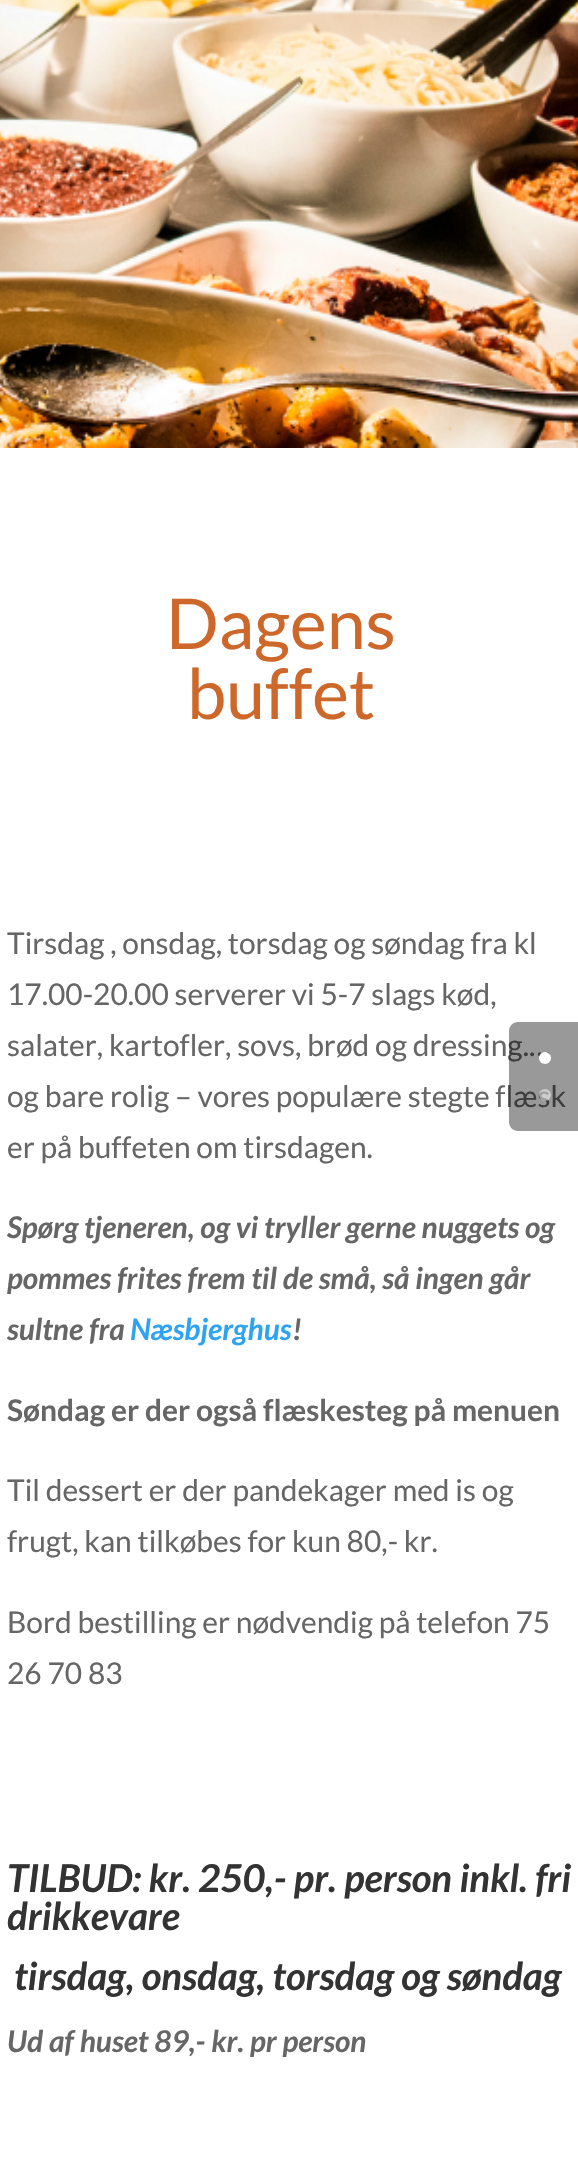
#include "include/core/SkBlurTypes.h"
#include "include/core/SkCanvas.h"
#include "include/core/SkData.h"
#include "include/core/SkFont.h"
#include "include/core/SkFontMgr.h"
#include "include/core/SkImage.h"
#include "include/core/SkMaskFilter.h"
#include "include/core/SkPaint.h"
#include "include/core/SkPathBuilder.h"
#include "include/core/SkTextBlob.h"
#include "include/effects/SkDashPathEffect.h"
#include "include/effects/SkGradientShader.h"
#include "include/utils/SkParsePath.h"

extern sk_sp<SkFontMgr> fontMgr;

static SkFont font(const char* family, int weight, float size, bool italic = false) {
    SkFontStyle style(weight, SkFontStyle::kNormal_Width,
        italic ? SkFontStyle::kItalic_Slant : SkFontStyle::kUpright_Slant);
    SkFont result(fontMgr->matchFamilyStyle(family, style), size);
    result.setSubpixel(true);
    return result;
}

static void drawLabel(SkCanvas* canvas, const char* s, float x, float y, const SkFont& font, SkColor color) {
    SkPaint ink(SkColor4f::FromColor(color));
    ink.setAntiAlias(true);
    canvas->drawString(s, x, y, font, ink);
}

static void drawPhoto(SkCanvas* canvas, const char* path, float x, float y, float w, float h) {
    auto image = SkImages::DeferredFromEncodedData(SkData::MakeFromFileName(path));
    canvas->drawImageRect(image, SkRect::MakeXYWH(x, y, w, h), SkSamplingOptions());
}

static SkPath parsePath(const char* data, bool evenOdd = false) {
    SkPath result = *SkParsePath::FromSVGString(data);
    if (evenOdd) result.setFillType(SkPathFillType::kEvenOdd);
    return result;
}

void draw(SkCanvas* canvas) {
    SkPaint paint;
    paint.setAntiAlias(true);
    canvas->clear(0xFFFFFFFF);
    drawPhoto(canvas, "assets/img1.png", 0, 0, 578, 448);
    SkFont font1 = font("Lato", 400, 70);
    drawLabel(canvas, "Dagens", 166, 649, font1, 0xFFCD672A);
    drawLabel(canvas, "buffet", 187, 719, font1, 0xFFCD672A);
    SkFont font2 = font("Lato", 400, 29.9f);
    drawLabel(canvas, "Tirsdag , onsdag, torsdag og søndag fra kl", 7, 954, font2, 0xFF666666);
    drawLabel(canvas, "17.00-20.00 serverer vi 5-7 slags kød,", 7, 1005, font2, 0xFF666666);
    drawLabel(canvas, "salater, kartofler, sovs, brød og dressing.…", 7, 1056, font2, 0xFF666666);
    drawLabel(canvas, "og bare rolig – vores populære stegte flæsk", 7, 1107, font2, 0xFF666666);
    drawLabel(canvas, "er på buffeten om tirsdagen.", 7, 1158, font2, 0xFF666666);
    SkFont font3 = font("Lato", 700, 29.9f, true);
    drawLabel(canvas, "Spørg tjeneren, og vi tryller gerne nuggets og", 7, 1238, font3, 0xFF666666);
    drawLabel(canvas, "pommes frites frem til de små, så ingen går", 7, 1289, font3, 0xFF666666);
    drawLabel(canvas, "sultne fra", 7, 1340, font3, 0xFF666666);
    drawLabel(canvas, "Næsbjerghus", 130, 1340, font3, 0xFF2EA3F2);
    drawLabel(canvas, "!", 292, 1340, font3, 0xFF666666);
    SkFont font4 = font("Lato", 700, 29.9f);
    drawLabel(canvas, "Søndag er der også flæskesteg på menuen", 7, 1421, font4, 0xFF666666);
    drawLabel(canvas, "Til dessert er der pandekager med is og", 7, 1501, font2, 0xFF666666);
    drawLabel(canvas, "frugt, kan tilkøbes for kun 80,- kr.", 7, 1552, font2, 0xFF666666);
    drawLabel(canvas, "Bord bestilling er nødvendig på telefon 75", 7, 1633, font2, 0xFF666666);
    drawLabel(canvas, "26 70 83", 7, 1684, font2, 0xFF666666);
    SkFont font5 = font("Lato", 700, 38.4f, true);
    drawLabel(canvas, "TILBUD: kr. 250,- pr. person inkl. fri", 7, 1892, font5, 0xFF333333);
    drawLabel(canvas, "drikkevare", 7, 1930, font5, 0xFF333333);
    drawLabel(canvas, "tirsdag, onsdag, torsdag og søndag", 14, 1990, font5, 0xFF333333);
    drawLabel(canvas, "Ud af huset 89,- kr. pr person", 7, 2052, font3, 0xFF666666);
    paint.setColor(0x66000000);
    canvas->drawPath(parsePath("M518 1022H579V1131H518C513 1131 509 1127 509 1122V1031C509 1026 513 1022 518 1022Z"), paint);
    paint.setColor(0xFFFFFFFF);
    canvas->drawCircle(545, 1058, 6, paint);
    paint.setColor(0x80FFFFFF);
    canvas->drawCircle(545, 1095, 6, paint);
}
